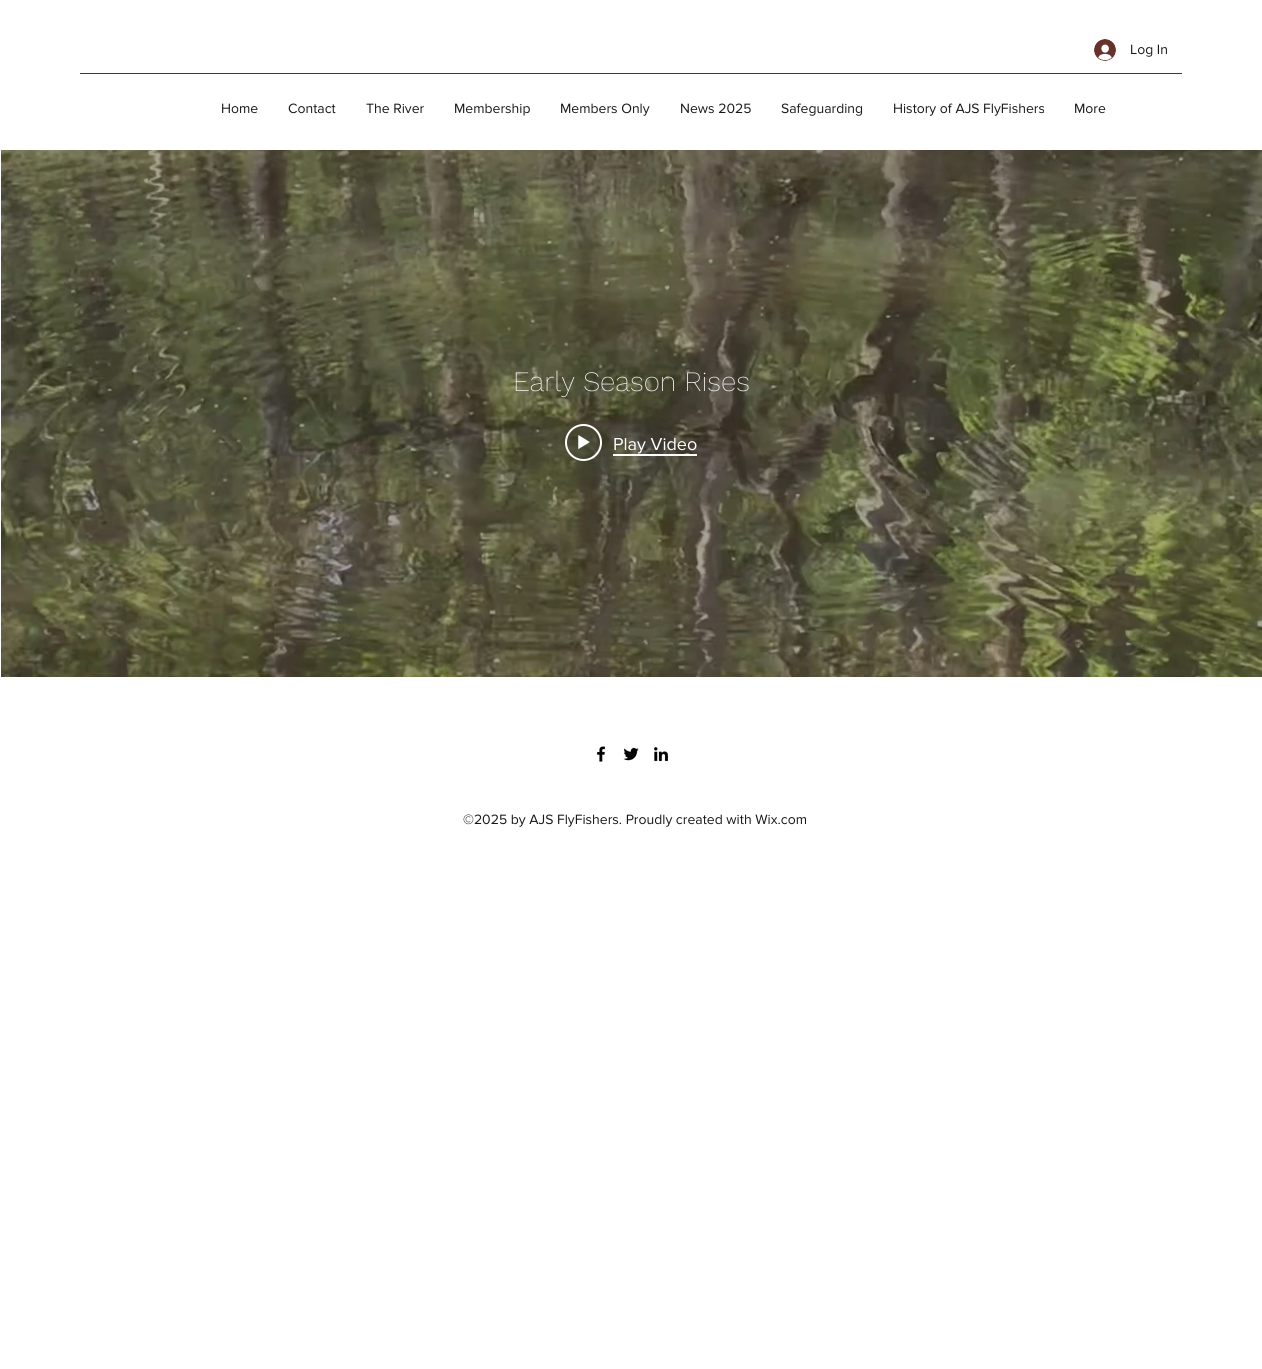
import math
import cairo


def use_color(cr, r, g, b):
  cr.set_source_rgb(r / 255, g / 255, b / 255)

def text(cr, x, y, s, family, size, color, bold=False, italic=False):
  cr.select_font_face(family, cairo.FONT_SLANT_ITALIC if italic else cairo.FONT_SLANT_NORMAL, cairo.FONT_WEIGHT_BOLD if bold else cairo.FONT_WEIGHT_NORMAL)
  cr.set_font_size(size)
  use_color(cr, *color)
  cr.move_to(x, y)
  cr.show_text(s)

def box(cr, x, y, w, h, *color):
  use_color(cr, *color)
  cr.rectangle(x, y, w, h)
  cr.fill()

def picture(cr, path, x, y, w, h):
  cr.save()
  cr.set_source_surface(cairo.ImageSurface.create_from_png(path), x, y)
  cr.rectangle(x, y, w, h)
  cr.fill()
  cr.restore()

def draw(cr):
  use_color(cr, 255, 255, 255)
  cr.paint()
  picture(cr, "img_01.png", 1094, 39, 22, 22)
  box(cr, 80, 73, 1102, 1, 59, 59, 59)
  picture(cr, "img_02.png", 1, 150, 1261, 527)
  picture(cr, "img_03.png", 52, 157, 1210, 520)
  cr.arc(583.5, 442.5, 17.5, 0, 2 * math.pi)
  use_color(cr, 255, 255, 255)
  cr.stroke()
  picture(cr, "img_04.png", 578, 435, 12, 14)
  box(cr, 613, 454, 84, 2, 255, 255, 255)
  picture(cr, "img_05.png", 597, 746, 9, 16)
  picture(cr, "img_06.png", 623, 747, 16, 14)
  picture(cr, "img_07.png", 654, 747, 15, 15)
  text(cr, 1130, 54, "Log In", "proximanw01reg", 14, (24, 24, 24))
  text(cr, 221, 113, "Home", "proximanw01reg", 14, (24, 24, 24))
  text(cr, 288, 113, "Contact", "proximanw01reg", 14, (24, 24, 24))
  text(cr, 366, 113, "The River", "proximanw01reg", 14, (24, 24, 24))
  text(cr, 454, 113, "Membership", "proximanw01reg", 14, (24, 24, 24))
  text(cr, 560, 113, "Members Only", "proximanw01reg", 14, (24, 24, 24))
  text(cr, 680, 113, "News 2025", "proximanw01reg", 14, (24, 24, 24))
  text(cr, 781, 113, "Safeguarding", "proximanw01reg", 14, (24, 24, 24))
  text(cr, 893, 113, "History of AJS FlyFishers", "proximanw01reg", 14, (24, 24, 24))
  text(cr, 1074, 113, "More", "proximanw01reg", 14, (24, 24, 24))
  text(cr, 513, 391, "Early Season Rises", "Work Sans ExtraLight", 28, (255, 255, 255))
  text(cr, 613, 450, "Play Video", "proximanw01reg", 18, (255, 255, 255))
  text(cr, 463, 824, "©2025 by AJS FlyFishers. Proudly created with Wix.com", "proximanw01reg", 14, (24, 24, 24))


surface = cairo.ImageSurface(cairo.FORMAT_RGB24, 1262, 1369)
cr = cairo.Context(surface)
options = cairo.FontOptions()
options.set_hint_metrics(cairo.HINT_METRICS_OFF)
options.set_hint_style(cairo.HINT_STYLE_NONE)
cr.set_font_options(options)
cr.set_miter_limit(4)
draw(cr)
surface.write_to_png("out.png")
